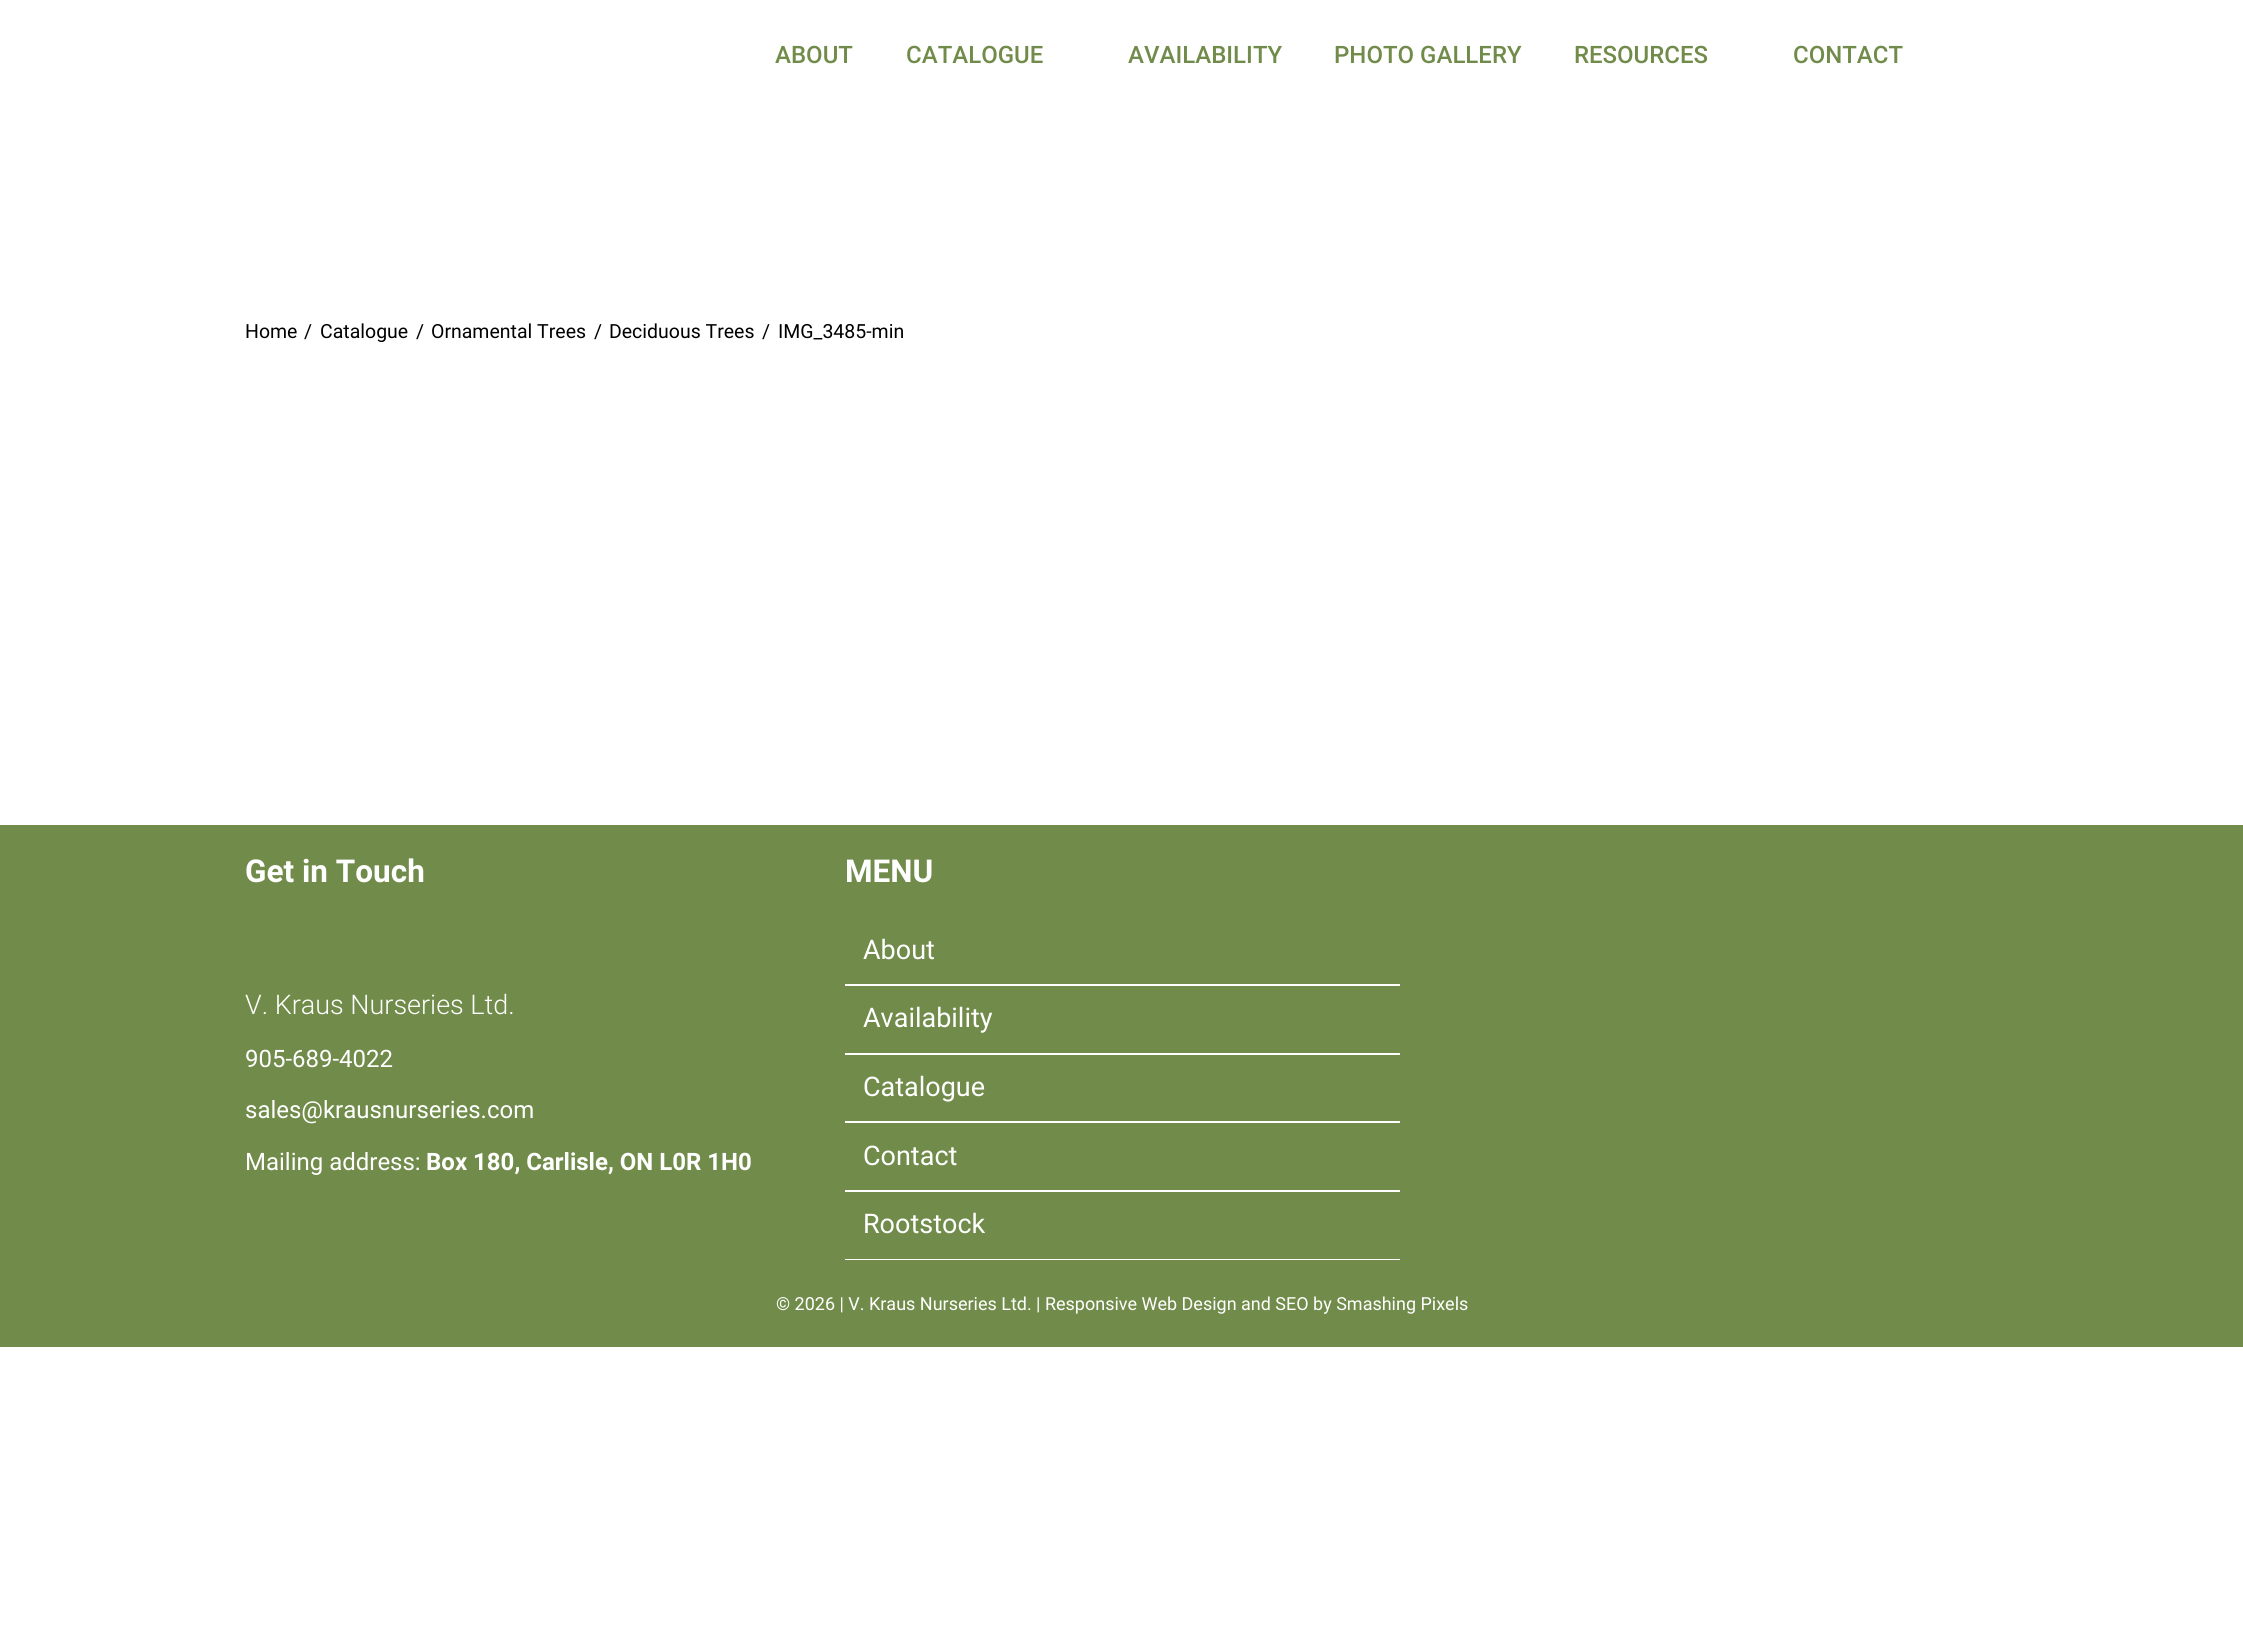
import math
import cairo


def use_color(cr, r, g, b):
  cr.set_source_rgb(r / 255, g / 255, b / 255)

def text(cr, x, y, s, family, size, color, bold=False, italic=False):
  cr.select_font_face(family, cairo.FONT_SLANT_ITALIC if italic else cairo.FONT_SLANT_NORMAL, cairo.FONT_WEIGHT_BOLD if bold else cairo.FONT_WEIGHT_NORMAL)
  cr.set_font_size(size)
  use_color(cr, *color)
  cr.move_to(x, y)
  cr.show_text(s)

def box(cr, x, y, w, h, *color):
  use_color(cr, *color)
  cr.rectangle(x, y, w, h)
  cr.fill()

def draw(cr):
  use_color(cr, 255, 255, 255)
  cr.paint()
  box(cr, 0, 825, 2243, 522, 113, 139, 74)
  box(cr, 845, 984, 555, 2, 255, 255, 255)
  box(cr, 845, 1053, 555, 2, 255, 255, 255)
  box(cr, 845, 1121, 555, 2, 255, 255, 255)
  box(cr, 845, 1190, 555, 2, 255, 255, 255)
  box(cr, 845, 1259, 555, 1, 255, 255, 255)
  text(cr, 775, 63, "ABOUT", "Roboto Medium", 24, (113, 139, 74))
  text(cr, 906, 63, "CATALOGUE", "Roboto Medium", 24, (113, 139, 74))
  text(cr, 1128, 63, "AVAILABILITY", "Roboto Medium", 24, (113, 139, 74))
  text(cr, 1334, 63, "PHOTO GALLERY", "Roboto Medium", 24, (113, 139, 74))
  text(cr, 1574, 63, "RESOURCES", "Roboto Medium", 24, (113, 139, 74))
  text(cr, 1793, 63, "CONTACT", "Roboto Medium", 24, (113, 139, 74))
  text(cr, 245, 338, "Home", "Roboto", 19.5, (0, 0, 0))
  text(cr, 304, 338, "/", "Roboto", 19.5, (0, 0, 0))
  text(cr, 320, 338, "Catalogue", "Roboto", 19.5, (0, 0, 0))
  text(cr, 416, 338, "/", "Roboto", 19.5, (0, 0, 0))
  text(cr, 431, 338, "Ornamental Trees", "Roboto", 19.5, (0, 0, 0))
  text(cr, 594, 338, "/", "Roboto", 19.5, (0, 0, 0))
  text(cr, 609, 338, "Deciduous Trees", "Roboto", 19.5, (0, 0, 0))
  text(cr, 762, 338, "/", "Roboto", 19.5, (0, 0, 0))
  text(cr, 778, 338, "IMG_3485-min", "Roboto", 19.5, (0, 0, 0))
  text(cr, 245, 882, "Get in Touch", "Roboto", 31.5, (255, 255, 255), bold=True)
  text(cr, 245, 1014, "V. Kraus Nurseries Ltd.", "Roboto Light", 27, (255, 255, 255))
  text(cr, 245, 1067, "905-689-4022", "Roboto", 24, (255, 255, 255))
  text(cr, 245, 1118, "sales@krausnurseries.com", "Roboto", 24, (255, 255, 255))
  text(cr, 245, 1170, "Mailing address:", "Roboto", 24, (255, 255, 255))
  text(cr, 426, 1170, "Box 180, Carlisle, ON L0R 1H0", "Roboto", 24, (255, 255, 255), bold=True)
  text(cr, 845, 882, "MENU", "Roboto", 31.5, (255, 255, 255), bold=True)
  text(cr, 863, 959, "About", "Roboto", 27, (255, 255, 255))
  text(cr, 863, 1027, "Availability", "Roboto", 27, (255, 255, 255))
  text(cr, 863, 1096, "Catalogue", "Roboto", 27, (255, 255, 255))
  text(cr, 863, 1165, "Contact", "Roboto", 27, (255, 255, 255))
  text(cr, 863, 1233, "Rootstock", "Roboto", 27, (255, 255, 255))
  text(cr, 776, 1310, "© 2026 | V. Kraus Nurseries Ltd. | Responsive Web Design and SEO by Smashing Pixels", "Roboto", 18, (255, 255, 255))


surface = cairo.ImageSurface(cairo.FORMAT_RGB24, 2243, 1637)
cr = cairo.Context(surface)
options = cairo.FontOptions()
options.set_hint_metrics(cairo.HINT_METRICS_OFF)
options.set_hint_style(cairo.HINT_STYLE_NONE)
cr.set_font_options(options)
cr.set_miter_limit(4)
draw(cr)
surface.write_to_png("out.png")
